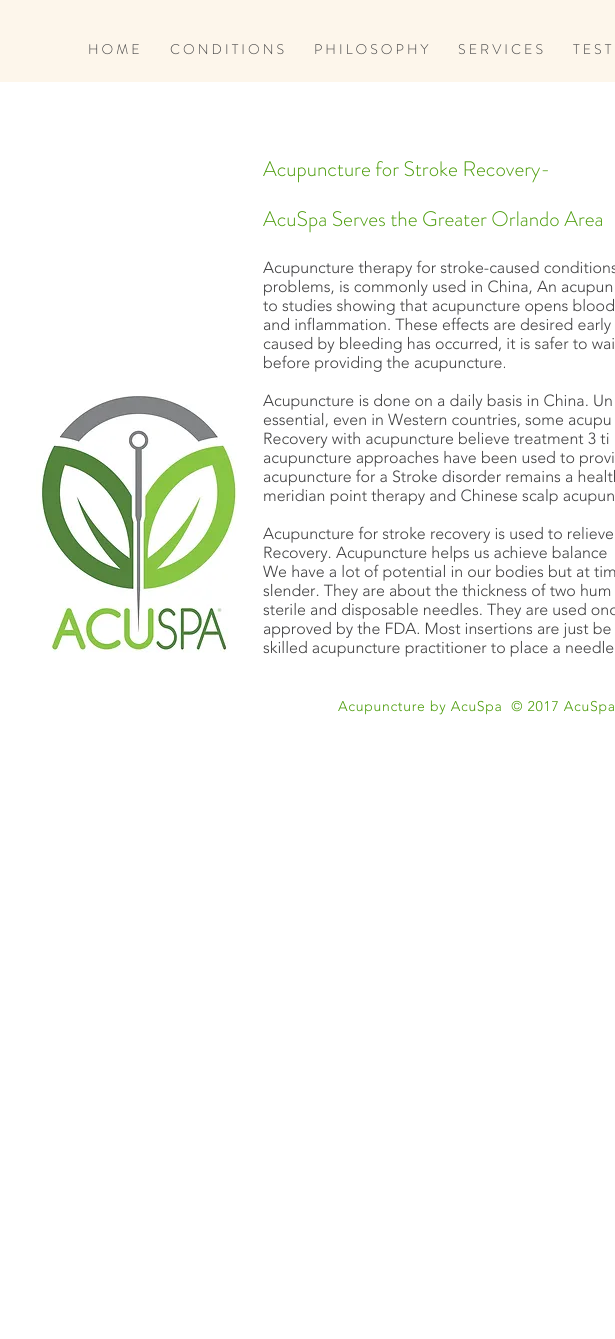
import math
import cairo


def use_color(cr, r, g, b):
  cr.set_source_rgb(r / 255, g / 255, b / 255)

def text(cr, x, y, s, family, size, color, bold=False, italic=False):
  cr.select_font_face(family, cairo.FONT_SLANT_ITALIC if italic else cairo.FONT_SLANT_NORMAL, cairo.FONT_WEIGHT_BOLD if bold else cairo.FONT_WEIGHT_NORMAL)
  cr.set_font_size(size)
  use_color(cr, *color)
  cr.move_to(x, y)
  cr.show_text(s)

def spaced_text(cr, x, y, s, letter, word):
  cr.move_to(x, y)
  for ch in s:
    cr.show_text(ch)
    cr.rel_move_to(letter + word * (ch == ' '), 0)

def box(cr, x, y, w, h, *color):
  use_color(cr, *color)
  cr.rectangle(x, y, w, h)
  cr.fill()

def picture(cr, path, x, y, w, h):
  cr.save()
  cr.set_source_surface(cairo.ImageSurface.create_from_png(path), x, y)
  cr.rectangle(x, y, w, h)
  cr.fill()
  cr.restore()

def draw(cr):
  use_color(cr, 255, 255, 255)
  cr.paint()
  box(cr, 0, 0, 615, 82, 253, 246, 235)
  picture(cr, "img_01.png", 36, 396, 201, 257)
  text(cr, 88, 54, "H O M E", "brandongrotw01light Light", 14, (64, 64, 65))
  text(cr, 170, 54, "C O N D I T I O N S", "brandongrotw01light Light", 14, (64, 64, 65))
  text(cr, 314, 54, "P H I L O S O P H Y", "brandongrotw01light Light", 14, (64, 64, 65))
  text(cr, 458, 54, "S E R V I C E S", "brandongrotw01light Light", 14, (64, 64, 65))
  text(cr, 573, 54, "T E S T", "brandongrotw01light Light", 14, (64, 64, 65))
  text(cr, 263, 176, "Acupuncture for Stroke Recovery-", "brandongrotw01light Light", 21, (76, 156, 11))
  text(cr, 263, 226, "AcuSpa Serves the Greater Orlando Area", "brandongrotw01light Light", 21, (76, 156, 11))
  text(cr, 263, 273, "Acupuncture therapy for stroke-caused conditions", "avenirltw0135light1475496 Light", 16, (64, 64, 65))
  text(cr, 263, 292, "problems, is commonly used in China, An acupun", "avenirltw0135light1475496 Light", 16, (64, 64, 65))
  text(cr, 263, 311, "to studies showing that acupuncture opens blood", "avenirltw0135light1475496 Light", 16, (64, 64, 65))
  text(cr, 263, 330, "and inflammation. These effects are desired early", "avenirltw0135light1475496 Light", 16, (64, 64, 65))
  text(cr, 263, 349, "caused by bleeding has occurred, it is safer to wai", "avenirltw0135light1475496 Light", 16, (64, 64, 65))
  text(cr, 263, 368, "before providing the acupuncture.", "avenirltw0135light1475496 Light", 16, (64, 64, 65))
  text(cr, 263, 406, "Acupuncture is done on a daily basis in China. Un", "avenirltw0135light1475496 Light", 16, (64, 64, 65))
  text(cr, 263, 425, "essential, even in Western countries, some acupu", "avenirltw0135light1475496 Light", 16, (64, 64, 65))
  text(cr, 263, 444, "Recovery with acupuncture believe treatment 3 ti", "avenirltw0135light1475496 Light", 16, (64, 64, 65))
  text(cr, 263, 463, "acupuncture approaches have been used to provi", "avenirltw0135light1475496 Light", 16, (64, 64, 65))
  text(cr, 263, 482, "acupuncture for a Stroke disorder remains a health", "avenirltw0135light1475496 Light", 16, (64, 64, 65))
  text(cr, 263, 501, "meridian point therapy and Chinese scalp acupun", "avenirltw0135light1475496 Light", 16, (64, 64, 65))
  text(cr, 263, 539, "Acupuncture for stroke recovery is used to relieve", "avenirltw0135light1475496 Light", 16, (64, 64, 65))
  text(cr, 263, 558, "Recovery. Acupuncture helps us achieve balance", "avenirltw0135light1475496 Light", 16, (64, 64, 65))
  text(cr, 263, 577, "We have a lot of potential in our bodies but at tim", "avenirltw0135light1475496 Light", 16, (64, 64, 65))
  text(cr, 263, 596, "slender. They are about the thickness of two hum", "avenirltw0135light1475496 Light", 16, (64, 64, 65))
  text(cr, 263, 615, "sterile and disposable needles. They are used onc", "avenirltw0135light1475496 Light", 16, (64, 64, 65))
  text(cr, 263, 634, "approved by the FDA. Most insertions are just be", "avenirltw0135light1475496 Light", 16, (64, 64, 65))
  text(cr, 263, 653, "skilled acupuncture practitioner to place a needle", "avenirltw0135light1475496 Light", 16, (64, 64, 65))
  cr.set_font_size(14)
  use_color(cr, 76, 156, 11)
  spaced_text(cr, 338, 711, "Acupuncture by AcuSpa  © 2017 AcuSpa", 0.7, 0)


surface = cairo.ImageSurface(cairo.FORMAT_RGB24, 615, 1339)
cr = cairo.Context(surface)
options = cairo.FontOptions()
options.set_hint_metrics(cairo.HINT_METRICS_OFF)
options.set_hint_style(cairo.HINT_STYLE_NONE)
cr.set_font_options(options)
cr.set_miter_limit(4)
draw(cr)
surface.write_to_png("out.png")
